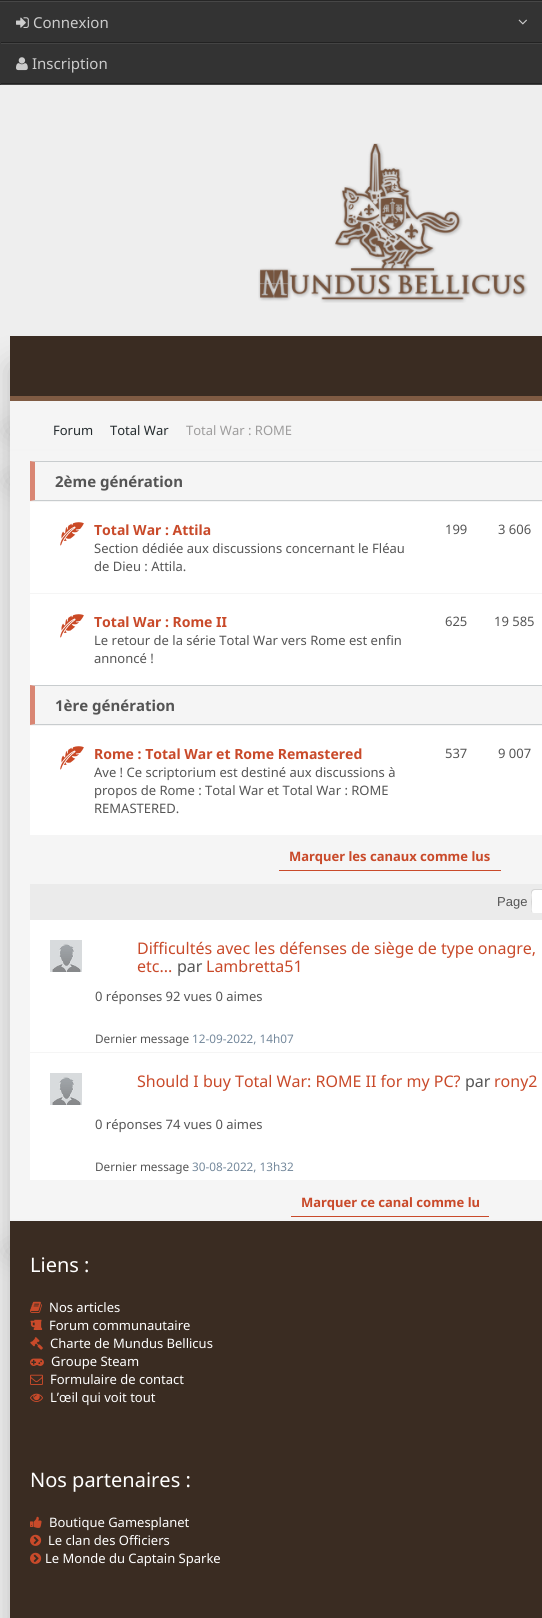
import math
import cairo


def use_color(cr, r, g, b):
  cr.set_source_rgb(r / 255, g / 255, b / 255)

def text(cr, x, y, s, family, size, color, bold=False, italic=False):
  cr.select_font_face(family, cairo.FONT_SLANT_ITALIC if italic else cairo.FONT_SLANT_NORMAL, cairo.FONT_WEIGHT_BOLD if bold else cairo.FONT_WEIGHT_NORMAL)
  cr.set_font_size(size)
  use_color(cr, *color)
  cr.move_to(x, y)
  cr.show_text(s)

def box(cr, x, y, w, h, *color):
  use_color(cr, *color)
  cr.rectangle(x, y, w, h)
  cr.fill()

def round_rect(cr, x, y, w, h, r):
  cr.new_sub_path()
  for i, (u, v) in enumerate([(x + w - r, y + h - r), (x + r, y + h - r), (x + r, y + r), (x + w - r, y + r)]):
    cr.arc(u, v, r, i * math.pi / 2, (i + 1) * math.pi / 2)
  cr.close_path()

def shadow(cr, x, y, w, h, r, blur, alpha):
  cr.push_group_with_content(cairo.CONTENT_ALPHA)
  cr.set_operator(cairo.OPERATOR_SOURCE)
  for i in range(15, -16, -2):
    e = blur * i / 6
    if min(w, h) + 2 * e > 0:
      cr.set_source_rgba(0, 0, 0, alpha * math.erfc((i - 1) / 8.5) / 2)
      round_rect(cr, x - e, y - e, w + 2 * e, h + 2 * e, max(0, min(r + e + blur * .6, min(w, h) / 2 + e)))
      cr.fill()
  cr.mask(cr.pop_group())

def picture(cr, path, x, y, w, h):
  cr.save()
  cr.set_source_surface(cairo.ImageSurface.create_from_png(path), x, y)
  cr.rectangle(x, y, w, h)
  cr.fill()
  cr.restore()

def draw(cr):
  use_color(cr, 238, 238, 238)
  cr.paint()
  box(cr, 0, 2, 542, 83, 51, 51, 51)
  box(cr, 0, 1, 542, 1, 71, 71, 71)
  box(cr, 0, 0, 542, 1, 38, 38, 38)
  box(cr, 1, 43, 541, 1, 68, 68, 68)
  box(cr, 1, 42, 541, 1, 34, 34, 34)
  picture(cr, "img_01.png", 16, 17, 13, 11)
  picture(cr, "img_02.png", 518, 19, 9, 6)
  box(cr, 1, 84, 541, 1, 68, 68, 68)
  box(cr, 1, 83, 541, 1, 34, 34, 34)
  picture(cr, "img_03.png", 16, 57, 12, 14)
  picture(cr, "img_04.png", 258, 143, 270, 160)
  use_color(cr, 0, 0, 0)
  shadow(cr, 10, 366, 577, 65, 0, 15, 0.2)
  box(cr, 10, 336, 532, 60, 58, 44, 34)
  box(cr, 10, 396, 532, 5, 127, 91, 67)
  use_color(cr, 0, 0, 0)
  shadow(cr, 10, 431, 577, 50, 0, 15, 0.2)
  box(cr, 10, 401, 532, 50, 245, 245, 245)
  use_color(cr, 0, 0, 0)
  shadow(cr, 10, 481, 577, 770, 0, 15, 0.2)
  box(cr, 10, 451, 532, 770, 245, 245, 245)
  use_color(cr, 200, 204, 206)
  cr.new_path()
  cr.move_to(30, 461)
  cr.line_to(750, 461)
  cr.line_to(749, 462)
  cr.line_to(35, 462)
  cr.close_path()
  cr.fill()
  cr.new_path()
  cr.move_to(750, 501)
  cr.line_to(30, 501)
  cr.line_to(35, 500)
  cr.line_to(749, 500)
  cr.close_path()
  cr.fill()
  cr.set_source_rgba(0.816, 0.38, 0.275, 0.74)
  cr.new_path()
  cr.move_to(30, 501)
  cr.line_to(30, 461)
  cr.line_to(35, 462)
  cr.line_to(35, 500)
  cr.close_path()
  cr.fill()
  box(cr, 30, 502, 512, 91, 255, 255, 255)
  picture(cr, "img_05.png", 60, 522, 24, 24)
  box(cr, 30, 594, 512, 91, 255, 255, 255)
  picture(cr, "img_05.png", 60, 614, 24, 24)
  use_color(cr, 200, 204, 206)
  cr.new_path()
  cr.move_to(30, 685)
  cr.line_to(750, 685)
  cr.line_to(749, 686)
  cr.line_to(35, 686)
  cr.close_path()
  cr.fill()
  cr.new_path()
  cr.move_to(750, 725)
  cr.line_to(30, 725)
  cr.line_to(35, 724)
  cr.line_to(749, 724)
  cr.close_path()
  cr.fill()
  cr.set_source_rgba(0.816, 0.38, 0.275, 0.74)
  cr.new_path()
  cr.move_to(30, 725)
  cr.line_to(30, 685)
  cr.line_to(35, 686)
  cr.line_to(35, 724)
  cr.close_path()
  cr.fill()
  box(cr, 30, 726, 512, 109, 255, 255, 255)
  picture(cr, "img_05.png", 60, 746, 24, 24)
  box(cr, 279, 870, 222, 1, 201, 74, 42)
  box(cr, 30, 884, 512, 36, 235, 235, 235)
  use_color(cr, 255, 255, 255)
  round_rect(cr, 531, 889, 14, 24, 3)
  cr.fill()
  cr.set_source_rgba(0.588, 0.588, 0.588, 0.4)
  cr.new_path()
  cr.move_to(535, 890)
  cr.line_to(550, 890)
  cr.curve_to(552, 890, 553.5, 890, 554.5, 890.5)
  cr.curve_to(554.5, 889.5, 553, 889, 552, 889)
  cr.line_to(534, 889)
  cr.curve_to(532.5, 889, 531, 890.5, 531, 892)
  cr.line_to(531, 910)
  cr.curve_to(531, 911, 531.5, 912, 532.5, 912.5)
  cr.line_to(531.5, 910)
  cr.line_to(532, 902)
  cr.line_to(531.5, 895)
  cr.line_to(532, 892)
  cr.curve_to(532.5, 891, 533.5, 890, 535, 890)
  cr.close_path()
  cr.fill()
  box(cr, 30, 920, 512, 260, 255, 255, 255)
  picture(cr, "img_06.png", 50, 940, 32, 32)
  box(cr, 30, 1052, 512, 1, 245, 245, 245)
  picture(cr, "img_06.png", 50, 1073, 32, 32)
  use_color(cr, 0, 0, 0)
  shadow(cr, 10, 1251, 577, 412, 0, 15, 0.2)
  box(cr, 291, 1216, 198, 1, 201, 74, 42)
  box(cr, 10, 1221, 532, 397, 58, 44, 34)
  picture(cr, "img_07.png", 30, 1301, 12, 12)
  picture(cr, "img_08.png", 30, 1319, 13, 11)
  picture(cr, "img_09.png", 30, 1337, 13, 13)
  picture(cr, "img_10.png", 30, 1358, 14, 8)
  picture(cr, "img_11.png", 30, 1374, 13, 11)
  picture(cr, "img_12.png", 30, 1393, 13, 9)
  picture(cr, "img_13.png", 30, 1516, 12, 12)
  picture(cr, "img_14.png", 30, 1534, 12, 12)
  picture(cr, "img_14.png", 30, 1552, 12, 12)
  text(cr, 33, 28, "Connexion", "Noto Sans", 15, (204, 204, 204))
  text(cr, 32, 69, "Inscription", "Noto Sans", 15, (204, 204, 204))
  text(cr, 53, 435, "Forum", "Noto Sans", 13, (37, 44, 47))
  text(cr, 110, 435, "Total War", "Noto Sans", 13, (37, 44, 47))
  text(cr, 186, 435, "Total War : ROME", "Noto Sans", 13, (158, 157, 157))
  text(cr, 55, 487, "2ème génération", "Noto Sans", 15, (85, 85, 85), bold=True)
  text(cr, 94, 535, "Total War : Attila", "Noto Sans", 14, (201, 74, 42), bold=True)
  text(cr, 94, 553, "Section dédiée aux discussions concernant le Fléau", "Noto Sans", 13, (85, 85, 85))
  text(cr, 94, 571, "de Dieu : Attila.", "Noto Sans", 13, (85, 85, 85))
  text(cr, 445, 534, "199", "Noto Sans", 13, (85, 85, 85))
  text(cr, 498, 534, "3 606", "Noto Sans", 13, (85, 85, 85))
  text(cr, 94, 627, "Total War : Rome II", "Noto Sans", 14, (201, 74, 42), bold=True)
  text(cr, 94, 645, "Le retour de la série Total War vers Rome est enfin", "Noto Sans", 13, (85, 85, 85))
  text(cr, 94, 663, "annoncé !", "Noto Sans", 13, (85, 85, 85))
  text(cr, 445, 626, "625", "Noto Sans", 13, (85, 85, 85))
  text(cr, 494, 626, "19 585", "Noto Sans", 13, (85, 85, 85))
  text(cr, 55, 711, "1ère génération", "Noto Sans", 15, (85, 85, 85), bold=True)
  text(cr, 94, 759, "Rome : Total War et Rome Remastered", "Noto Sans", 14, (201, 74, 42), bold=True)
  text(cr, 94, 777, "Ave ! Ce scriptorium est destiné aux discussions à", "Noto Sans", 13, (85, 85, 85))
  text(cr, 94, 795, "propos de Rome : Total War et Total War : ROME", "Noto Sans", 13, (85, 85, 85))
  text(cr, 94, 813, "REMASTERED.", "Noto Sans", 13, (85, 85, 85))
  text(cr, 445, 758, "537", "Noto Sans", 13, (85, 85, 85))
  text(cr, 498, 758, "9 007", "Noto Sans", 13, (85, 85, 85))
  text(cr, 289, 861, "Marquer les canaux comme lus", "Noto Sans", 13, (201, 74, 42), bold=True)
  text(cr, 497, 906, "Page", "Liberation Sans", 13, (85, 85, 85))
  text(cr, 137, 954, "Difficultés avec les défenses de siège de type onagre,", "Noto Sans", 16, (201, 74, 42))
  text(cr, 137, 972, "etc...", "Noto Sans", 16, (201, 74, 42))
  text(cr, 177, 972, "par", "Noto Sans", 16, (85, 85, 85))
  text(cr, 206, 972, "Lambretta51", "Noto Sans", 16, (201, 74, 42))
  text(cr, 95, 1001, "0 réponses 92 vues 0 aimes", "Noto Sans", 13, (85, 85, 85))
  text(cr, 95, 1043, "Dernier message", "Noto Sans", 11.75, (85, 85, 85))
  text(cr, 192, 1043, "12-09-2022, 14h07", "Noto Sans", 11.75, (117, 137, 156))
  text(cr, 137, 1087, "Should I buy Total War: ROME II for my PC?", "Noto Sans", 16, (201, 74, 42))
  text(cr, 465, 1087, "par", "Noto Sans", 16, (85, 85, 85))
  text(cr, 494, 1087, "rony2", "Noto Sans", 16, (201, 74, 42))
  text(cr, 95, 1129, "0 réponses 74 vues 0 aimes", "Noto Sans", 13, (85, 85, 85))
  text(cr, 95, 1171, "Dernier message", "Noto Sans", 11.75, (85, 85, 85))
  text(cr, 192, 1171, "30-08-2022, 13h32", "Noto Sans", 11.75, (117, 137, 156))
  text(cr, 301, 1207, "Marquer ce canal comme lu", "Noto Sans", 13, (201, 74, 42), bold=True)
  text(cr, 30, 1272, "Liens :", "Noto Sans", 20, (255, 255, 255))
  text(cr, 49, 1312, "Nos articles", "Noto Sans", 13, (255, 255, 255))
  text(cr, 49, 1330, "Forum communautaire", "Noto Sans", 13, (255, 255, 255))
  text(cr, 50, 1348, "Charte de Mundus Bellicus", "Noto Sans", 13, (255, 255, 255))
  text(cr, 51, 1366, "Groupe Steam", "Noto Sans", 13, (255, 255, 255))
  text(cr, 50, 1384, "Formulaire de contact", "Noto Sans", 13, (255, 255, 255))
  text(cr, 50, 1402, "L’œil qui voit tout", "Noto Sans", 13, (255, 255, 255))
  text(cr, 30, 1487, "Nos partenaires :", "Noto Sans", 20, (255, 255, 255))
  text(cr, 49, 1527, "Boutique Gamesplanet", "Noto Sans", 13, (255, 255, 255))
  text(cr, 48, 1545, "Le clan des Officiers", "Noto Sans", 13, (255, 255, 255))
  text(cr, 45, 1563, "Le Monde du Captain Sparke", "Noto Sans", 13, (255, 255, 255))


surface = cairo.ImageSurface(cairo.FORMAT_RGB24, 542, 1618)
cr = cairo.Context(surface)
options = cairo.FontOptions()
options.set_hint_metrics(cairo.HINT_METRICS_OFF)
options.set_hint_style(cairo.HINT_STYLE_NONE)
cr.set_font_options(options)
cr.set_miter_limit(4)
draw(cr)
surface.write_to_png("out.png")
